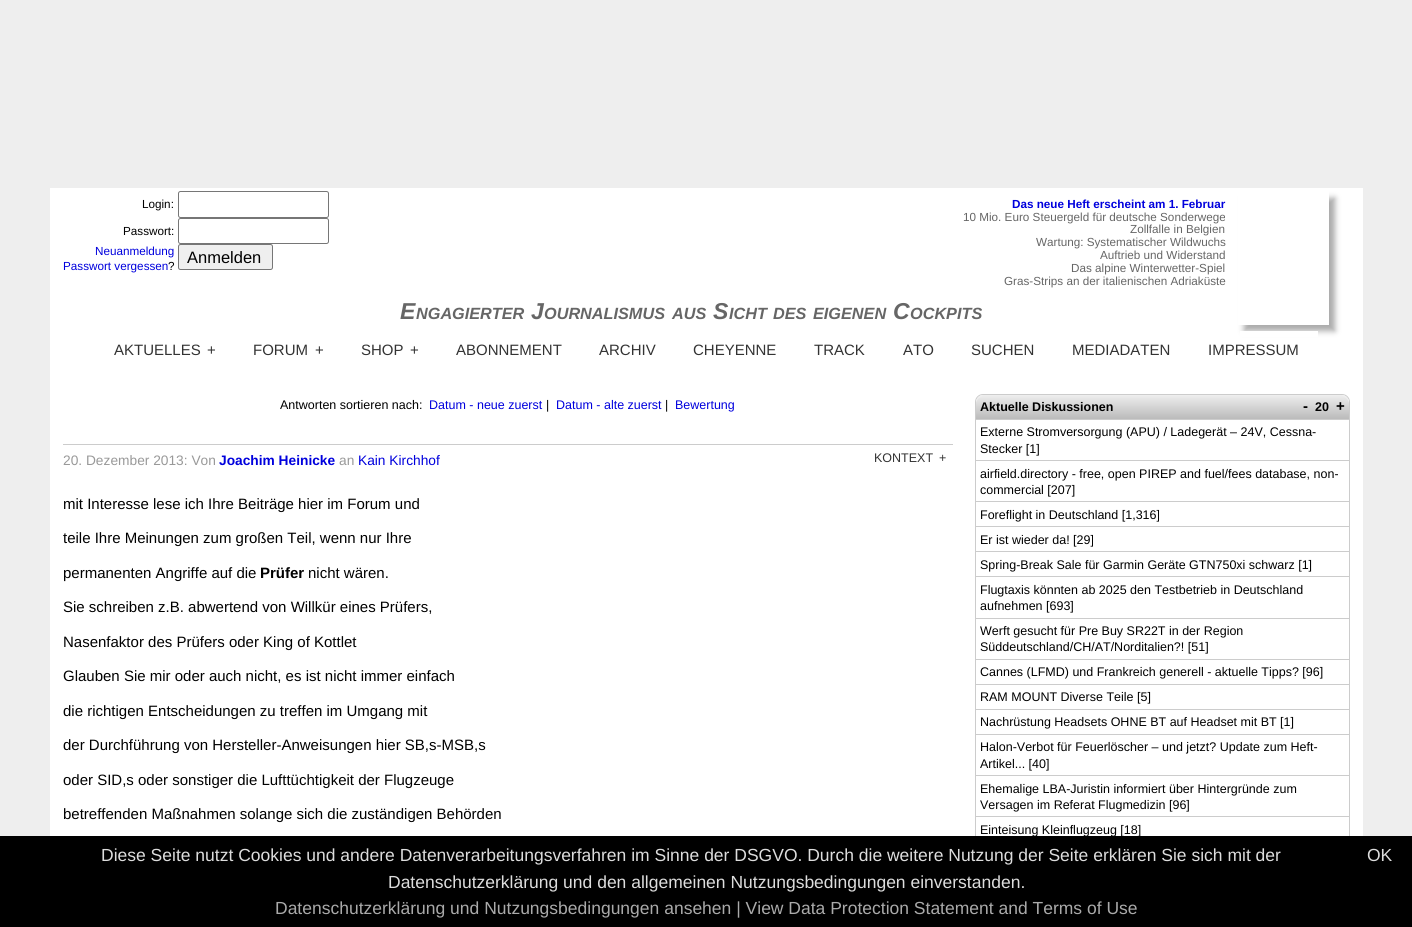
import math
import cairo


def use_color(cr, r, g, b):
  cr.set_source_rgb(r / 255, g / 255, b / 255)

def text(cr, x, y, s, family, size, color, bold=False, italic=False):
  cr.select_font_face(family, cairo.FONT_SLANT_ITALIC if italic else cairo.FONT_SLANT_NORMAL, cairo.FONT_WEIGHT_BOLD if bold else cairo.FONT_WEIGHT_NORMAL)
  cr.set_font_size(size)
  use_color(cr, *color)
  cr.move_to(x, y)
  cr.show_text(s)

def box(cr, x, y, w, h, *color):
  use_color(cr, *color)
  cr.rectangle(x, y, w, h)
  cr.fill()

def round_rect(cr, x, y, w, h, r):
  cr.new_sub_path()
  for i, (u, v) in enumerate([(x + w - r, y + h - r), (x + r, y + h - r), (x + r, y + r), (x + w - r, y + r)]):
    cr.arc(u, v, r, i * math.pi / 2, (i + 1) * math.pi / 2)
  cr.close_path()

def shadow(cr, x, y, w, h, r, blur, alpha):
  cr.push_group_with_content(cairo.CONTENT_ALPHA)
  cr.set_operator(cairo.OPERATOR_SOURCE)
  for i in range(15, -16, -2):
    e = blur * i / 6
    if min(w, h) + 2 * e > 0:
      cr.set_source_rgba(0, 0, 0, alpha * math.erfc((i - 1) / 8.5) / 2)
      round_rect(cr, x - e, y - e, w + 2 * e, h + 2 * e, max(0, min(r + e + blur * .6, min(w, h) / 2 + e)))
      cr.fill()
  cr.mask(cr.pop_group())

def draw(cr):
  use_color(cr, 238, 238, 238)
  cr.paint()
  box(cr, 50, 188, 1313, 648, 255, 255, 255)
  round_rect(cr, 178.5, 191.5, 150, 26, 2)
  use_color(cr, 118, 118, 118)
  cr.set_line_width(1)
  cr.stroke()
  round_rect(cr, 178.5, 218.5, 150, 25, 2)
  cr.stroke()
  use_color(cr, 239, 239, 239)
  round_rect(cr, 178.5, 244.5, 94, 25, 2)
  cr.fill_preserve()
  use_color(cr, 118, 118, 118)
  cr.stroke()
  cr.save()
  cr.set_fill_rule(cairo.FILL_RULE_EVEN_ODD)
  cr.new_path()
  cr.move_to(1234, 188)
  cr.line_to(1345, 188)
  cr.line_to(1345, 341)
  cr.line_to(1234, 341)
  cr.close_path()
  cr.move_to(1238, 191)
  cr.line_to(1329, 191)
  cr.line_to(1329, 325)
  cr.line_to(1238, 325)
  cr.close_path()
  cr.clip()
  use_color(cr, 170, 170, 170)
  shadow(cr, 1244, 198, 91, 133, 0, 3, 1)
  cr.restore()
  box(cr, 1240, 331, 78, 6, 255, 255, 255)
  box(cr, 63, 444, 890, 1, 204, 204, 204)
  round_rect(cr, 975.5, 394.5, 374, 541, 7.5)
  cr.stroke()
  gradient = cairo.LinearGradient(1163, 395, 1163, 419)
  gradient.add_color_stop_rgba(0, 0.933, 0.933, 0.933, 1)
  gradient.add_color_stop_rgba(1, 0.733, 0.733, 0.733, 1)
  cr.set_source(gradient)
  cr.new_path()
  cr.move_to(984, 395)
  cr.line_to(1341, 395)
  cr.curve_to(1345.5, 395, 1349, 398.5, 1349, 403)
  cr.line_to(1349, 419)
  cr.line_to(976, 419)
  cr.line_to(976, 403)
  cr.curve_to(976, 398.5, 979.5, 395, 984, 395)
  cr.close_path()
  cr.fill()
  use_color(cr, 238, 238, 238)
  cr.new_path()
  cr.move_to(984, 396)
  cr.line_to(1341, 396)
  cr.curve_to(1345, 396, 1349, 400, 1349, 404)
  cr.curve_to(1349, 399, 1346, 395, 1341, 395)
  cr.line_to(984, 395)
  cr.curve_to(979, 395, 976, 399, 976, 404)
  cr.curve_to(976, 400, 980, 396, 984, 396)
  cr.close_path()
  cr.fill()
  box(cr, 976, 419, 373, 1, 204, 204, 204)
  box(cr, 976, 460, 373, 1, 204, 204, 204)
  box(cr, 976, 501, 373, 1, 204, 204, 204)
  box(cr, 976, 526, 373, 1, 204, 204, 204)
  box(cr, 976, 551, 373, 1, 204, 204, 204)
  box(cr, 976, 576, 373, 1, 204, 204, 204)
  box(cr, 976, 618, 373, 1, 204, 204, 204)
  box(cr, 976, 659, 373, 1, 204, 204, 204)
  box(cr, 976, 684, 373, 1, 204, 204, 204)
  box(cr, 976, 709, 373, 1, 204, 204, 204)
  box(cr, 976, 734, 373, 1, 204, 204, 204)
  box(cr, 976, 775, 373, 1, 204, 204, 204)
  box(cr, 976, 816, 373, 1, 204, 204, 204)
  box(cr, 0, 836, 1412, 91, 0, 0, 0)
  text(cr, 142, 208, "Login:", "Liberation Sans", 11.7, (0, 0, 0))
  text(cr, 123, 235, "Passwort:", "Liberation Sans", 11.7, (0, 0, 0))
  text(cr, 95, 255, "Neuanmeldung", "Liberation Sans", 11.7, (0, 0, 221))
  text(cr, 63, 270, "Passwort vergessen", "Liberation Sans", 11.7, (0, 0, 221))
  text(cr, 168, 270, "?", "Liberation Sans", 11.7, (0, 0, 0))
  text(cr, 187, 263, "Anmelden", "Liberation Sans", 16.5, (0, 0, 0))
  text(cr, 1012, 208, "Das neue Heft erscheint am 1. Februar", "Liberation Sans", 11.7, (0, 0, 221), bold=True)
  text(cr, 963, 221, "10 Mio. Euro Steuergeld für deutsche Sonderwege", "Liberation Sans", 11.7, (102, 102, 102))
  text(cr, 1130, 233, "Zollfalle in Belgien", "Liberation Sans", 11.7, (102, 102, 102))
  text(cr, 1036, 246, "Wartung: Systematischer Wildwuchs", "Liberation Sans", 11.7, (102, 102, 102))
  text(cr, 1100, 259, "Auftrieb und Widerstand", "Liberation Sans", 11.7, (102, 102, 102))
  text(cr, 1071, 272, "Das alpine Winterwetter-Spiel", "Liberation Sans", 11.7, (102, 102, 102))
  text(cr, 1004, 285, "Gras-Strips an der italienischen Adriaküste", "Liberation Sans", 11.7, (102, 102, 102))
  text(cr, 400, 319, "E", "Liberation Sans", 23, (102, 102, 102), bold=True, italic=True)
  text(cr, 416, 319, "NGAGIERTER", "Liberation Sans", 16.25, (102, 102, 102), bold=True, italic=True)
  text(cr, 531, 319, "J", "Liberation Sans", 23, (102, 102, 102), bold=True, italic=True)
  text(cr, 544, 319, "OURNALISMUS", "Liberation Sans", 16.25, (102, 102, 102), bold=True, italic=True)
  text(cr, 672, 319, "AUS", "Liberation Sans", 16.25, (102, 102, 102), bold=True, italic=True)
  text(cr, 713, 319, "S", "Liberation Sans", 23, (102, 102, 102), bold=True, italic=True)
  text(cr, 729, 319, "ICHT", "Liberation Sans", 16.25, (102, 102, 102), bold=True, italic=True)
  text(cr, 773, 319, "DES", "Liberation Sans", 16.25, (102, 102, 102), bold=True, italic=True)
  text(cr, 813, 319, "EIGENEN", "Liberation Sans", 16.25, (102, 102, 102), bold=True, italic=True)
  text(cr, 893, 319, "C", "Liberation Sans", 23, (102, 102, 102), bold=True, italic=True)
  text(cr, 910, 319, "OCKPITS", "Liberation Sans", 16.25, (102, 102, 102), bold=True, italic=True)
  text(cr, 114, 355, "AKTUELLES", "Liberation Sans", 15, (51, 51, 51))
  text(cr, 207, 355, "+", "Liberation Sans", 15, (51, 51, 51))
  text(cr, 253, 355, "FORUM", "Liberation Sans", 15, (51, 51, 51))
  text(cr, 315, 355, "+", "Liberation Sans", 15, (51, 51, 51))
  text(cr, 361, 355, "SHOP", "Liberation Sans", 15, (51, 51, 51))
  text(cr, 410, 355, "+", "Liberation Sans", 15, (51, 51, 51))
  text(cr, 456, 355, "ABONNEMENT", "Liberation Sans", 15, (51, 51, 51))
  text(cr, 599, 355, "ARCHIV", "Liberation Sans", 15, (51, 51, 51))
  text(cr, 693, 355, "CHEYENNE", "Liberation Sans", 15, (51, 51, 51))
  text(cr, 814, 355, "TRACK", "Liberation Sans", 15, (51, 51, 51))
  text(cr, 903, 355, "ATO", "Liberation Sans", 15, (51, 51, 51))
  text(cr, 971, 355, "SUCHEN", "Liberation Sans", 15, (51, 51, 51))
  text(cr, 1072, 355, "MEDIADATEN", "Liberation Sans", 15, (51, 51, 51))
  text(cr, 1208, 355, "IMPRESSUM", "Liberation Sans", 15, (51, 51, 51))
  text(cr, 280, 409, "Antworten sortieren nach:", "Liberation Sans", 12.5, (0, 0, 0))
  text(cr, 429, 409, "Datum - neue zuerst", "Liberation Sans", 12.5, (0, 0, 221))
  text(cr, 546, 409, "|", "Liberation Sans", 12.5, (0, 0, 0))
  text(cr, 556, 409, "Datum - alte zuerst", "Liberation Sans", 12.5, (0, 0, 221))
  text(cr, 665, 409, "|", "Liberation Sans", 12.5, (0, 0, 0))
  text(cr, 675, 409, "Bewertung", "Liberation Sans", 12.5, (0, 0, 221))
  text(cr, 63, 465, "20. Dezember 2013: Von", "Liberation Sans", 13.75, (153, 153, 153))
  text(cr, 219, 465, "Joachim Heinicke", "Liberation Sans", 13.75, (0, 0, 221), bold=True)
  text(cr, 339, 465, "an", "Liberation Sans", 13.75, (153, 153, 153))
  text(cr, 358, 465, "Kain Kirchhof", "Liberation Sans", 13.75, (0, 0, 221))
  text(cr, 874, 462, "KONTEXT", "Liberation Sans", 12.5, (51, 51, 51))
  text(cr, 939, 462, "+", "Liberation Sans", 12.5, (51, 51, 51))
  text(cr, 63, 509, "mit Interesse lese ich Ihre Beiträge hier im Forum und", "Liberation Sans", 15, (0, 0, 0))
  text(cr, 63, 543, "teile Ihre Meinungen zum großen Teil, wenn nur Ihre", "Liberation Sans", 15, (0, 0, 0))
  text(cr, 63, 578, "permanenten Angriffe auf die", "Liberation Sans", 15, (0, 0, 0))
  text(cr, 260, 578, "Prüfer", "Liberation Sans", 15, (0, 0, 0), bold=True)
  text(cr, 308, 578, "nicht wären.", "Liberation Sans", 15, (0, 0, 0))
  text(cr, 63, 612, "Sie schreiben z.B. abwertend von Willkür eines Prüfers,", "Liberation Sans", 15, (0, 0, 0))
  text(cr, 63, 647, "Nasenfaktor des Prüfers oder King of Kottlet", "Liberation Sans", 15, (0, 0, 0))
  text(cr, 63, 681, "Glauben Sie mir oder auch nicht, es ist nicht immer einfach", "Liberation Sans", 15, (0, 0, 0))
  text(cr, 63, 716, "die richtigen Entscheidungen zu treffen im Umgang mit", "Liberation Sans", 15, (0, 0, 0))
  text(cr, 63, 750, "der Durchführung von Hersteller-Anweisungen hier SB,s-MSB,s", "Liberation Sans", 15, (0, 0, 0))
  text(cr, 63, 785, "oder SID,s oder sonstiger die Lufttüchtigkeit der Flugzeuge", "Liberation Sans", 15, (0, 0, 0))
  text(cr, 63, 819, "betreffenden Maßnahmen solange sich die zuständigen Behörden", "Liberation Sans", 15, (0, 0, 0))
  text(cr, 980, 411, "Aktuelle Diskussionen", "Liberation Sans", 12.5, (0, 0, 0), bold=True)
  text(cr, 1303, 411, "-", "Liberation Sans", 15, (0, 0, 0), bold=True)
  text(cr, 1315, 411, "20", "Liberation Sans", 12.5, (0, 0, 0), bold=True)
  text(cr, 1336, 411, "+", "Liberation Sans", 15, (0, 0, 0), bold=True)
  text(cr, 980, 436, "Externe Stromversorgung (APU) / Ladegerät – 24V, Cessna-", "Liberation Sans", 12.5, (0, 0, 0))
  text(cr, 980, 453, "Stecker [1]", "Liberation Sans", 12.5, (0, 0, 0))
  text(cr, 980, 478, "airfield.directory - free, open PIREP and fuel/fees database, non-", "Liberation Sans", 12.5, (0, 0, 0))
  text(cr, 980, 494, "commercial [207]", "Liberation Sans", 12.5, (0, 0, 0))
  text(cr, 980, 519, "Foreflight in Deutschland [1,316]", "Liberation Sans", 12.5, (0, 0, 0))
  text(cr, 980, 544, "Er ist wieder da! [29]", "Liberation Sans", 12.5, (0, 0, 0))
  text(cr, 980, 569, "Spring-Break Sale für Garmin Geräte GTN750xi schwarz [1]", "Liberation Sans", 12.5, (0, 0, 0))
  text(cr, 980, 594, "Flugtaxis könnten ab 2025 den Testbetrieb in Deutschland", "Liberation Sans", 12.5, (0, 0, 0))
  text(cr, 980, 610, "aufnehmen [693]", "Liberation Sans", 12.5, (0, 0, 0))
  text(cr, 980, 635, "Werft gesucht für Pre Buy SR22T in der Region", "Liberation Sans", 12.5, (0, 0, 0))
  text(cr, 980, 651, "Süddeutschland/CH/AT/Norditalien?! [51]", "Liberation Sans", 12.5, (0, 0, 0))
  text(cr, 980, 676, "Cannes (LFMD) und Frankreich generell - aktuelle Tipps? [96]", "Liberation Sans", 12.5, (0, 0, 0))
  text(cr, 980, 701, "RAM MOUNT Diverse Teile [5]", "Liberation Sans", 12.5, (0, 0, 0))
  text(cr, 980, 726, "Nachrüstung Headsets OHNE BT auf Headset mit BT [1]", "Liberation Sans", 12.5, (0, 0, 0))
  text(cr, 980, 751, "Halon-Verbot für Feuerlöscher – und jetzt? Update zum Heft-", "Liberation Sans", 12.5, (0, 0, 0))
  text(cr, 980, 768, "Artikel... [40]", "Liberation Sans", 12.5, (0, 0, 0))
  text(cr, 980, 793, "Ehemalige LBA-Juristin informiert über Hintergründe zum", "Liberation Sans", 12.5, (0, 0, 0))
  text(cr, 980, 809, "Versagen im Referat Flugmedizin [96]", "Liberation Sans", 12.5, (0, 0, 0))
  text(cr, 980, 834, "Einteisung Kleinflugzeug [18]", "Liberation Sans", 12.5, (0, 0, 0))
  text(cr, 101, 861, "Diese Seite nutzt Cookies und andere Datenverarbeitungsverfahren im Sinne der DSGVO. Durch die weitere Nutzung der Seite erklären Sie sich mit der", "Liberation Sans", 17.5, (221, 221, 221))
  text(cr, 1367, 861, "OK", "Liberation Sans", 17.5, (221, 221, 221))
  text(cr, 388, 888, "Datenschutzerklärung und den allgemeinen Nutzungsbedingungen einverstanden.", "Liberation Sans", 17.5, (221, 221, 221))
  text(cr, 275, 914, "Datenschutzerklärung und Nutzungsbedingungen ansehen | View Data Protection Statement and Terms of Use", "Liberation Sans", 17.5, (170, 170, 170))


surface = cairo.ImageSurface(cairo.FORMAT_RGB24, 1412, 927)
cr = cairo.Context(surface)
options = cairo.FontOptions()
options.set_hint_metrics(cairo.HINT_METRICS_OFF)
options.set_hint_style(cairo.HINT_STYLE_NONE)
cr.set_font_options(options)
cr.set_miter_limit(4)
draw(cr)
surface.write_to_png("out.png")
